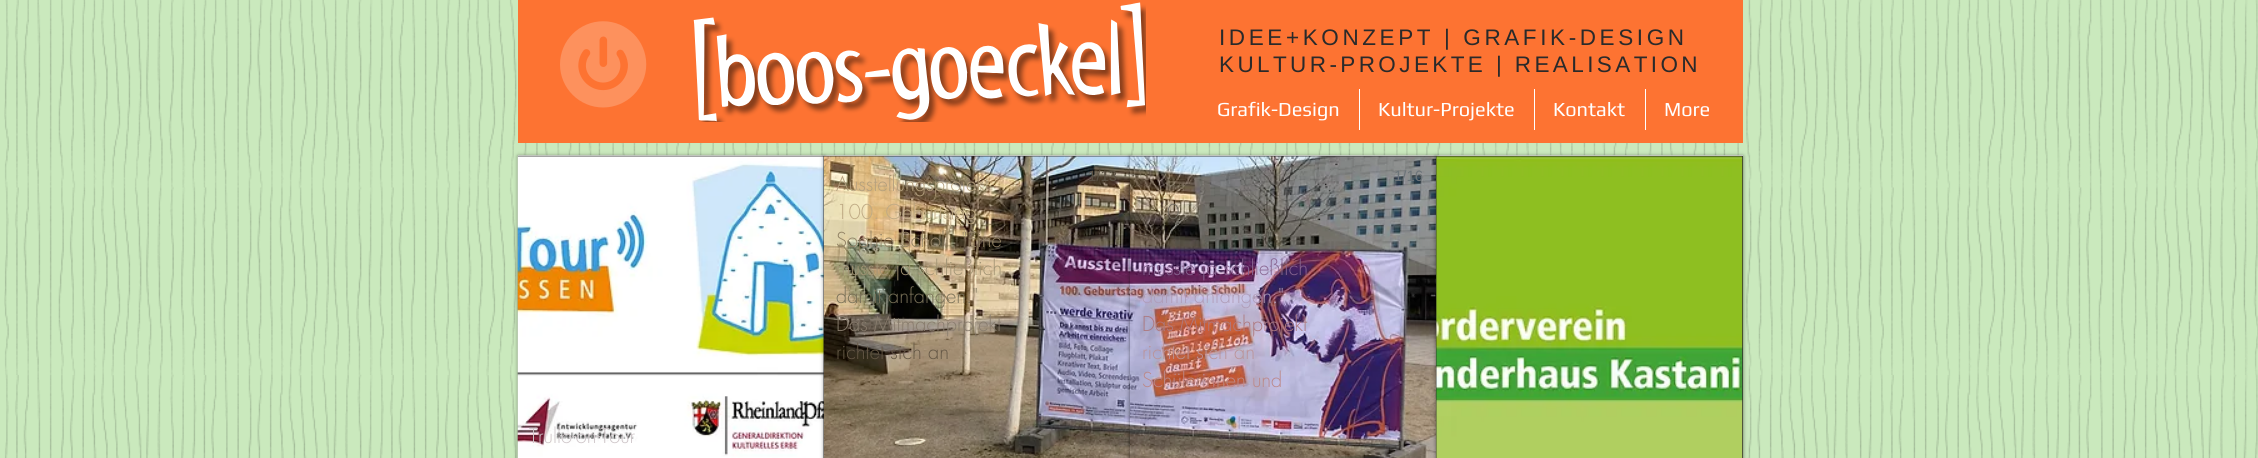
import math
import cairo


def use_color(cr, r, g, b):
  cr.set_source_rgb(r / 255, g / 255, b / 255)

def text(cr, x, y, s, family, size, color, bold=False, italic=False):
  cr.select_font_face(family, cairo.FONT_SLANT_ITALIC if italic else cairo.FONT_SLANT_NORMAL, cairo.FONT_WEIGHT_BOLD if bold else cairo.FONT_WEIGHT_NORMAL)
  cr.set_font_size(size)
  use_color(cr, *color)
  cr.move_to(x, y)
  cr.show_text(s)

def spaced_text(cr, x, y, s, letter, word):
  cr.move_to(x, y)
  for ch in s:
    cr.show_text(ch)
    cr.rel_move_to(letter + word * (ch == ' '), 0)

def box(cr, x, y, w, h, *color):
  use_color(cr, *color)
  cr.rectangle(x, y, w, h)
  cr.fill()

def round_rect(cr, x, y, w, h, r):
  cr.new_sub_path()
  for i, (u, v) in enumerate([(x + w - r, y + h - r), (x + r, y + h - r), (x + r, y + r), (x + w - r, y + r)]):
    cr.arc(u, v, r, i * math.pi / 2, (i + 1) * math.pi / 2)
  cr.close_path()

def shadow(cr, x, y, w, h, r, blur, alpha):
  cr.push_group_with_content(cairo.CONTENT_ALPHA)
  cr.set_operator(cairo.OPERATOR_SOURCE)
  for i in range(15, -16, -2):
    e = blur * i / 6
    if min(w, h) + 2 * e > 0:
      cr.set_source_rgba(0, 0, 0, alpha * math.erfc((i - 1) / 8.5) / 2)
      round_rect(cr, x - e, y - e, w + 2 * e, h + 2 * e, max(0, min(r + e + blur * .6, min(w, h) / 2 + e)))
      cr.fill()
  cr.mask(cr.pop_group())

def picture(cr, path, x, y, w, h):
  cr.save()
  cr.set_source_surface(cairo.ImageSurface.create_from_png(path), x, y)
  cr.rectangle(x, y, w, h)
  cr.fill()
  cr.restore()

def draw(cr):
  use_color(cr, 202, 233, 189)
  cr.paint()
  picture(cr, "img_01.png", 4, 0, 2254, 458)
  box(cr, 518, 0, 1225, 143, 253, 115, 50)
  picture(cr, "img_02.png", 560, 21, 87, 87)
  picture(cr, "img_03.png", 693, 2, 453, 120)
  box(cr, 1359, 89, 1, 41, 255, 255, 255)
  box(cr, 1534, 89, 1, 41, 255, 255, 255)
  box(cr, 1645, 89, 1, 41, 255, 255, 255)
  cr.set_source_rgba(1, 1, 1, 0.75)
  cr.rectangle(518, 155, 1225, 1)
  cr.fill()
  use_color(cr, 0, 0, 0)
  shadow(cr, 518, 156, 306, 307, 0, 2, 0.5)
  box(cr, 518, 156, 306, 302, 47, 46, 46)
  picture(cr, "img_07.png", 517, 156, 307, 302)
  use_color(cr, 0, 0, 0)
  shadow(cr, 824, 156, 306, 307, 0, 2, 0.5)
  box(cr, 824, 156, 306, 1, 47, 46, 46)
  picture(cr, "img_04.png", 823, 156, 307, 302)
  use_color(cr, 0, 0, 0)
  shadow(cr, 1130, 156, 306, 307, 0, 2, 0.5)
  box(cr, 1130, 156, 306, 1, 47, 46, 46)
  picture(cr, "img_05.png", 1130, 156, 306, 302)
  use_color(cr, 0, 0, 0)
  shadow(cr, 1436, 156, 307, 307, 0, 2, 0.5)
  box(cr, 1436, 156, 307, 302, 47, 46, 46)
  picture(cr, "img_06.png", 1436, 156, 307, 302)
  cr.select_font_face("Liberation Sans")
  cr.set_font_size(22.5)
  use_color(cr, 42, 42, 42)
  spaced_text(cr, 1219, 45, "IDEE+KONZEPT | GRAFIK-DESIGN", 3.6, 0)
  spaced_text(cr, 1219, 72, "KULTUR-PROJEKTE | REALISATION", 3.4, 0)
  text(cr, 1217, 116, "Grafik-Design", "Play", 20, (255, 255, 255))
  text(cr, 1378, 116, "Kultur-Projekte", "Play", 20, (255, 255, 255))
  text(cr, 1553, 116, "Kontakt", "Play", 20, (255, 255, 255))
  text(cr, 1664, 116, "More", "Play", 20, (255, 255, 255))
  text(cr, 836, 191, "Ausstellungsprojekt", "futura Light", 20, (179, 159, 125))
  text(cr, 836, 219, "100. Geburtstag", "futura Light", 20, (191, 170, 132))
  text(cr, 836, 247, "Sophie Scholl. \"Eine", "futura Light", 20, (145, 129, 100))
  text(cr, 836, 275, "musste ja schließlich", "futura Light", 20, (162, 148, 116))
  text(cr, 836, 303, "damit anfangen.\"", "futura Light", 20, (121, 113, 88))
  text(cr, 836, 331, "Das Mitmachprojekt", "futura Light", 20, (136, 124, 109))
  text(cr, 836, 359, "richtet sich an", "futura Light", 20, (100, 87, 69))
  text(cr, 1088, 181, "1/13", "Liberation Sans", 15, (90, 81, 68))
  text(cr, 1394, 181, "1/16", "Liberation Sans", 15, (108, 116, 121))
  text(cr, 1167, 219, "0", "futura Light", 20, (110, 105, 94))
  text(cr, 1267, 247, "\"", "futura Light", 20, (81, 77, 70))
  text(cr, 1142, 275, "musste ja schließlich", "futura Light", 20, (135, 100, 144))
  text(cr, 1142, 303, "damit anfangen.\"", "futura Light", 20, (175, 157, 184))
  text(cr, 1142, 331, "Das Mitmachprojekt", "futura Light", 20, (173, 121, 127))
  text(cr, 1142, 359, "richtet sich an", "futura Light", 20, (187, 147, 152))
  text(cr, 1142, 387, "Schülerinnen und", "futura Light", 20, (188, 137, 137))
  text(cr, 529, 443, "Trullo-on-Tour", "futura Light", 20, (206, 197, 200))


surface = cairo.ImageSurface(cairo.FORMAT_RGB24, 2258, 458)
cr = cairo.Context(surface)
options = cairo.FontOptions()
options.set_hint_metrics(cairo.HINT_METRICS_OFF)
options.set_hint_style(cairo.HINT_STYLE_NONE)
cr.set_font_options(options)
cr.set_miter_limit(4)
draw(cr)
surface.write_to_png("out.png")
